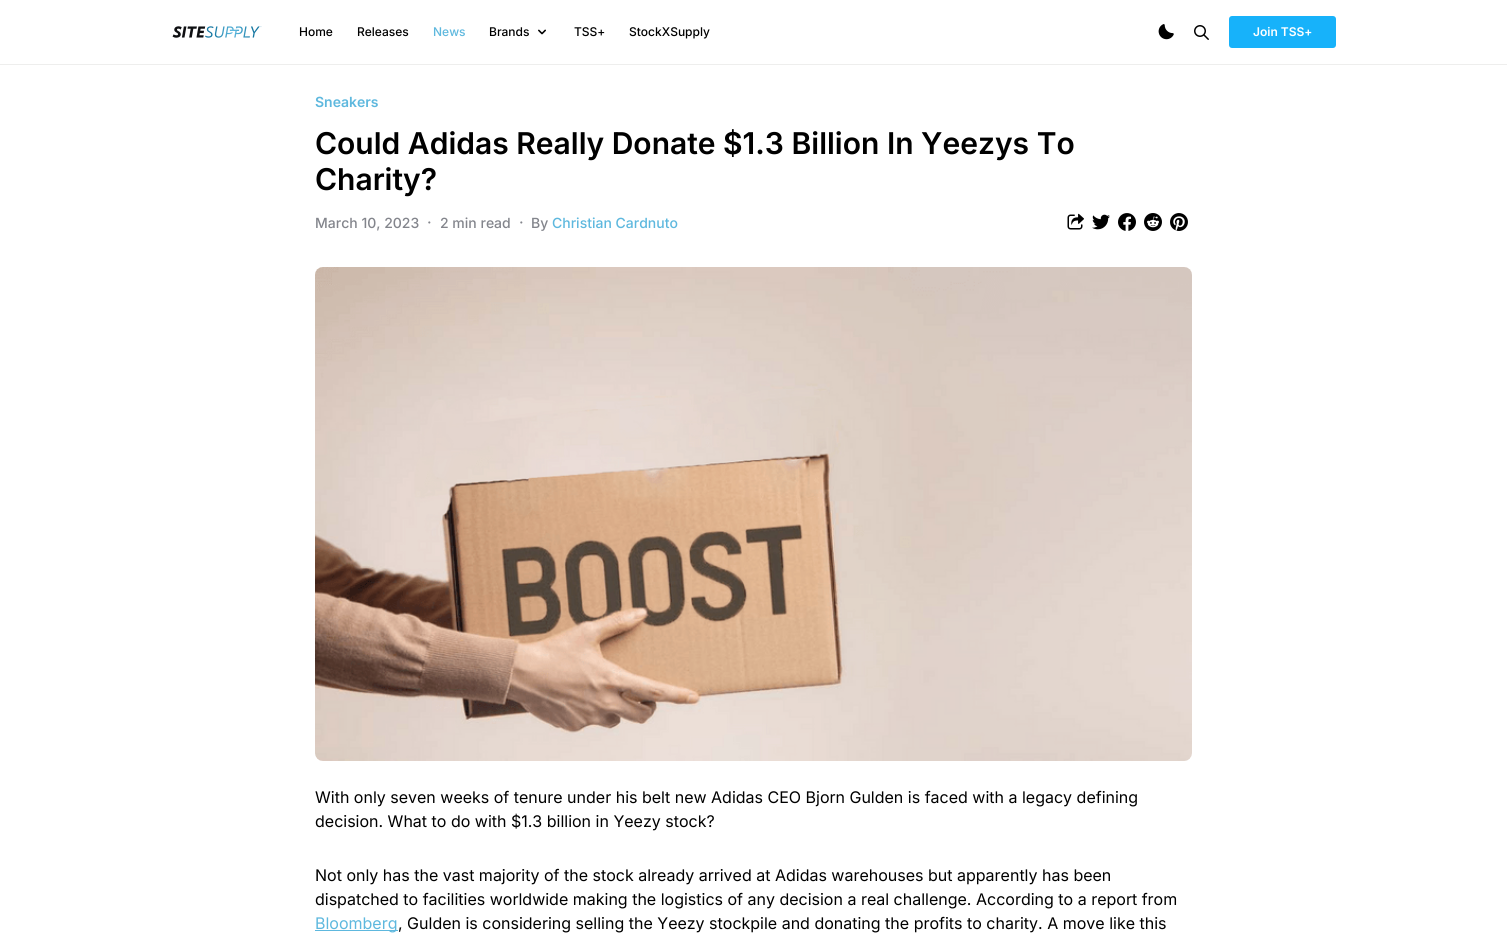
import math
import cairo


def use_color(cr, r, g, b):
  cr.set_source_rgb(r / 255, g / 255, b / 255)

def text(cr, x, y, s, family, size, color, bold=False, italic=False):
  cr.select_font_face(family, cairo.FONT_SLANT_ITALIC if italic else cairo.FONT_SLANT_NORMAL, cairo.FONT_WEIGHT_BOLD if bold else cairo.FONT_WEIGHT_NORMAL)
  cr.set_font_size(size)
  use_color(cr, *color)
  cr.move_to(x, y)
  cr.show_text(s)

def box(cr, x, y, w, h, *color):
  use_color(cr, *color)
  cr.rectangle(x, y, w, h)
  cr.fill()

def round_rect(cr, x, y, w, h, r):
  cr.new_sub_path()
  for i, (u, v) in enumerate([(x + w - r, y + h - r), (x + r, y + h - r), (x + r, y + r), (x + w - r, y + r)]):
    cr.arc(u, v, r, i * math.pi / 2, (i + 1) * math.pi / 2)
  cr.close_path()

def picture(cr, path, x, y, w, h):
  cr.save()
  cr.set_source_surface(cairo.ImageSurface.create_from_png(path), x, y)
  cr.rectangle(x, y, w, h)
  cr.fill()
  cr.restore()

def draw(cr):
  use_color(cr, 255, 255, 255)
  cr.paint()
  box(cr, 0, 64, 1507, 1, 238, 238, 237)
  picture(cr, "img_01.png", 172, 26, 90, 12)
  picture(cr, "img_02.png", 538, 29, 8, 6)
  picture(cr, "img_03.png", 1158, 24, 16, 16)
  picture(cr, "img_04.png", 1194, 25, 15, 15)
  use_color(cr, 23, 178, 250)
  round_rect(cr, 1229, 16, 107, 32, 3)
  cr.fill()
  picture(cr, "img_05.png", 1067, 213, 17, 17)
  picture(cr, "img_06.png", 1092, 214, 18, 16)
  picture(cr, "img_07.png", 1118, 213, 18, 18)
  picture(cr, "img_08.png", 1144, 213, 18, 18)
  picture(cr, "img_09.png", 1170, 213, 18, 18)
  picture(cr, "img_10.png", 315, 267, 877, 494)
  box(cr, 315, 930, 83, 1, 94, 184, 222)
  text(cr, 299, 36, "Home", "Inter Medium", 12, (0, 0, 0))
  text(cr, 357, 36, "Releases", "Inter Medium", 12, (0, 0, 0))
  text(cr, 433, 36, "News", "Inter Medium", 12, (94, 184, 222))
  text(cr, 489, 36, "Brands", "Inter Medium", 12, (0, 0, 0))
  text(cr, 574, 36, "TSS+", "Inter Medium", 12, (0, 0, 0))
  text(cr, 629, 36, "StockXSupply", "Inter Medium", 12, (0, 0, 0))
  text(cr, 1253, 36, "Join TSS+", "Inter SemiBold", 12, (255, 255, 255))
  text(cr, 315, 107, "Sneakers", "Inter SemiBold", 14, (94, 184, 222))
  text(cr, 315, 154, "Could Adidas Really Donate $1.3 Billion In Yeezys To", "Inter SemiBold", 30, (0, 0, 0))
  text(cr, 315, 190, "Charity?", "Inter SemiBold", 30, (0, 0, 0))
  text(cr, 315, 228, "March 10, 2023", "Inter Medium", 14, (131, 133, 140))
  text(cr, 427, 228, "·", "Inter", 16, (131, 133, 140))
  text(cr, 440, 228, "2 min read", "Inter Medium", 14, (131, 133, 140))
  text(cr, 519, 228, "·", "Inter", 16, (131, 133, 140))
  text(cr, 531, 228, "By", "Inter Medium", 14, (131, 133, 140))
  text(cr, 552, 228, "Christian Cardnuto", "Inter Medium", 14, (94, 184, 222))
  text(cr, 315, 803, "With only seven weeks of tenure under his belt new Adidas CEO Bjorn Gulden is faced with a legacy defining", "Inter", 16, (0, 0, 0))
  text(cr, 315, 827, "decision. What to do with $1.3 billion in Yeezy stock?", "Inter", 16, (0, 0, 0))
  text(cr, 315, 881, "Not only has the vast majority of the stock already arrived at Adidas warehouses but apparently has been", "Inter", 16, (0, 0, 0))
  text(cr, 315, 905, "dispatched to facilities worldwide making the logistics of any decision a real challenge. According to a report from", "Inter", 16, (0, 0, 0))
  text(cr, 315, 929, "Bloomberg", "Inter", 16, (94, 184, 222))
  text(cr, 398, 929, ", Gulden is considering selling the Yeezy stockpile and donating the profits to charity. A move like this", "Inter", 16, (0, 0, 0))


surface = cairo.ImageSurface(cairo.FORMAT_RGB24, 1507, 941)
cr = cairo.Context(surface)
options = cairo.FontOptions()
options.set_hint_metrics(cairo.HINT_METRICS_OFF)
options.set_hint_style(cairo.HINT_STYLE_NONE)
cr.set_font_options(options)
cr.set_miter_limit(4)
draw(cr)
surface.write_to_png("out.png")
